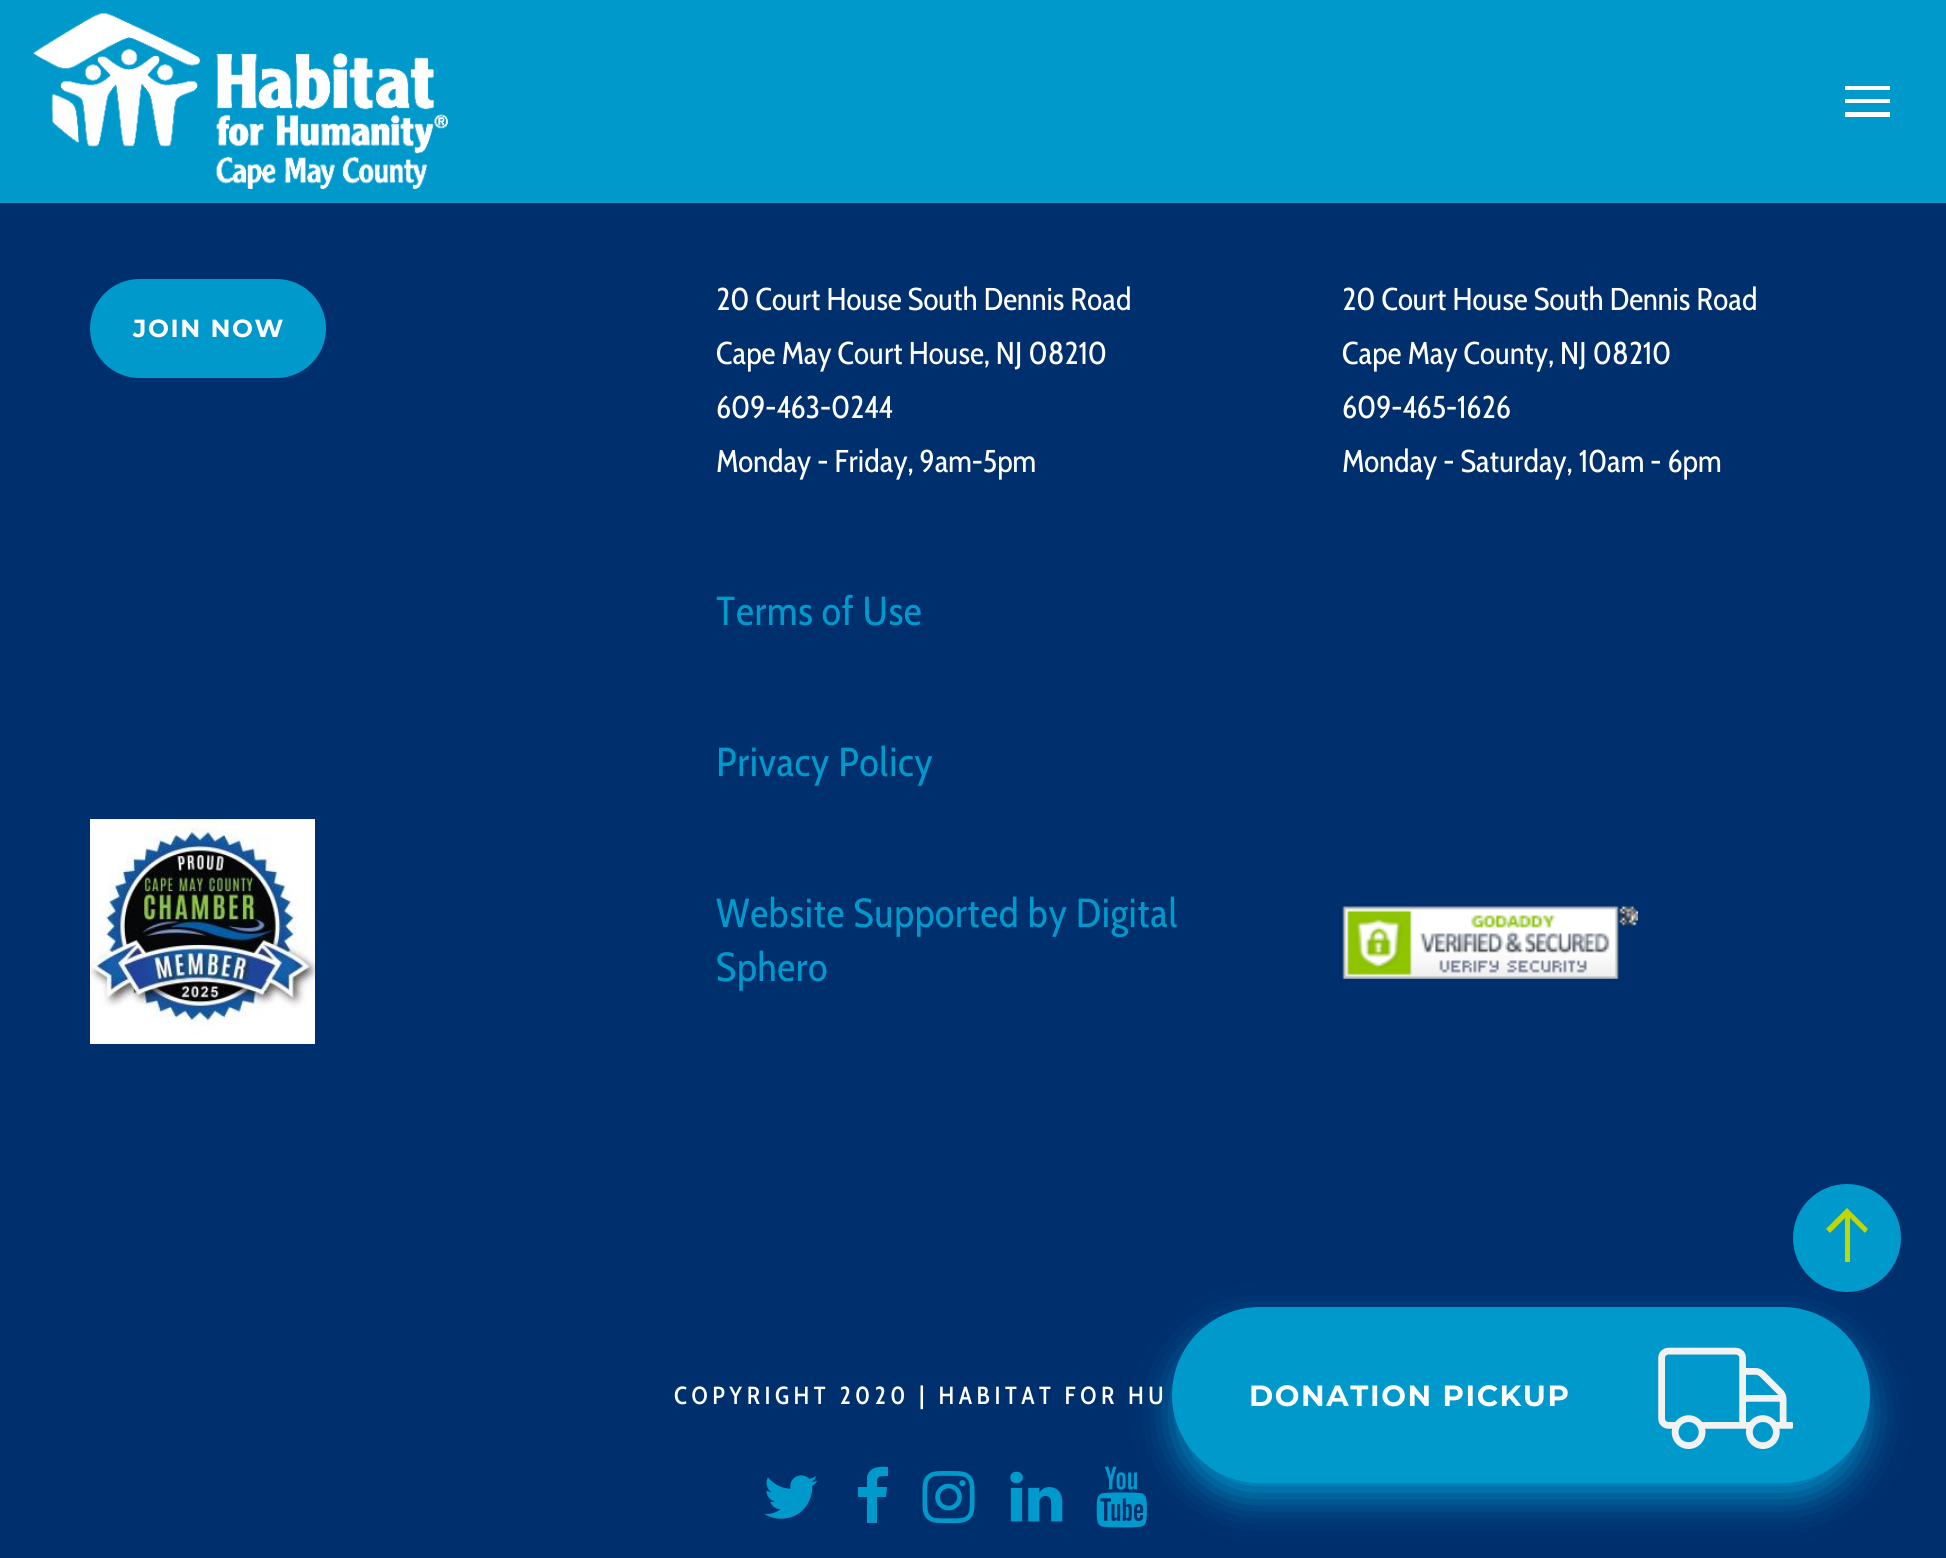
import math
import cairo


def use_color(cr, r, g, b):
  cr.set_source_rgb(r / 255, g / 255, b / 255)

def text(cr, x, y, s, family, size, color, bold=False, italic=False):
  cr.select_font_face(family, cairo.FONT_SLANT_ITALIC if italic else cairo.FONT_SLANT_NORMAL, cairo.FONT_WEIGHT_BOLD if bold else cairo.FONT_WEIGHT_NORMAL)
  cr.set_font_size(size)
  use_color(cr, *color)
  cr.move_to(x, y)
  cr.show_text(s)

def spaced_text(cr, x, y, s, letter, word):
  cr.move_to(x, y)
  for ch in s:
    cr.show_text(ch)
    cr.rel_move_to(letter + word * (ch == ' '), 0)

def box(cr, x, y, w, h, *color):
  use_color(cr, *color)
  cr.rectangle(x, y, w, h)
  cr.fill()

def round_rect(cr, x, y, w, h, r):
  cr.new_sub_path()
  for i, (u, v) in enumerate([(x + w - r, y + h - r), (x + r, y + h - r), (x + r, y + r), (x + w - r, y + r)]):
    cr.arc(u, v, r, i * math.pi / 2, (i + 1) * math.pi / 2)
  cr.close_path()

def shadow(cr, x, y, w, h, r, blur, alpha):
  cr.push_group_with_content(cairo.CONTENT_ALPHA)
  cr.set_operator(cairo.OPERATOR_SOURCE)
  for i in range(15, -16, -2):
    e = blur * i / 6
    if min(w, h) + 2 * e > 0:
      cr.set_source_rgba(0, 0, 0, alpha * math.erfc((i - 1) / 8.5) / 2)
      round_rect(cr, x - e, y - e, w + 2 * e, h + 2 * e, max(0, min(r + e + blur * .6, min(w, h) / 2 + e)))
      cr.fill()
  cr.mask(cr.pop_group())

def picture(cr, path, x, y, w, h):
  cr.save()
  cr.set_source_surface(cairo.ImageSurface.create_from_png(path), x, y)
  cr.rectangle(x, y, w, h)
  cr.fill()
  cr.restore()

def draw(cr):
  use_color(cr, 0, 47, 109)
  cr.paint()
  box(cr, 0, 0, 1946, 203, 0, 153, 204)
  picture(cr, "img_01.png", 33, 13, 415, 176)
  use_color(cr, 255, 255, 255)
  cr.new_path()
  cr.move_to(1845, 99)
  cr.line_to(1890, 99)
  cr.line_to(1890, 103)
  cr.line_to(1845, 103)
  cr.close_path()
  cr.move_to(1845, 86)
  cr.line_to(1890, 86)
  cr.line_to(1890, 90)
  cr.line_to(1845, 90)
  cr.close_path()
  cr.move_to(1845, 112)
  cr.line_to(1890, 112)
  cr.line_to(1890, 117)
  cr.line_to(1845, 117)
  cr.close_path()
  cr.fill()
  use_color(cr, 0, 153, 204)
  round_rect(cr, 90, 279, 236, 99, 49.5)
  cr.fill()
  picture(cr, "img_02.png", 90, 819, 225, 225)
  picture(cr, "img_03.png", 1342, 906, 296, 73)
  picture(cr, "img_04.png", 764, 1475, 54, 44)
  cr.new_path()
  cr.move_to(888, 1467)
  cr.curve_to(879, 1466, 869, 1467, 867, 1477)
  cr.line_to(867, 1487)
  cr.line_to(858, 1487)
  cr.line_to(858, 1497)
  cr.line_to(867, 1497)
  cr.line_to(867, 1523)
  cr.line_to(877, 1523)
  cr.line_to(877, 1497)
  cr.line_to(886, 1497)
  cr.line_to(887, 1487)
  cr.line_to(877, 1487)
  cr.curve_to(877, 1477, 876, 1476, 888, 1476)
  cr.close_path()
  cr.fill()
  picture(cr, "img_05.png", 922, 1471, 53, 53)
  picture(cr, "img_06.png", 1010, 1471, 53, 51)
  picture(cr, "img_07.png", 1096, 1466, 51, 62)
  cr.arc(1847, 1238, 54, 0, 2 * math.pi)
  cr.fill()
  use_color(cr, 196, 214, 0)
  cr.new_path()
  cr.move_to(1850, 1262)
  cr.line_to(1850, 1218)
  cr.line_to(1865, 1233)
  cr.line_to(1868, 1229)
  cr.line_to(1847, 1208)
  cr.line_to(1826, 1229)
  cr.line_to(1830, 1233)
  cr.line_to(1845, 1218)
  cr.line_to(1845, 1262)
  cr.close_path()
  cr.fill()
  use_color(cr, 0, 153, 204)
  shadow(cr, 1177, 1330, 688, 166, 83, 19, 1)
  use_color(cr, 0, 153, 204)
  round_rect(cr, 1172, 1307, 698, 176, 88)
  cr.fill()
  picture(cr, "img_08.png", 1658, 1347, 135, 102)
  cr.select_font_face("Montserrat Thin")
  cr.set_font_size(24.75)
  use_color(cr, 255, 255, 255)
  spaced_text(cr, 133, 337, "JOIN NOW", 1.6, 0)
  text(cr, 716, 310, "20 Court House South Dennis Road", "Cabin Condensed", 31.5, (255, 255, 255))
  text(cr, 716, 364, "Cape May Court House, NJ 08210", "Cabin Condensed", 31.5, (255, 255, 255))
  text(cr, 716, 418, "609-463-0244", "Cabin Condensed", 31.5, (255, 255, 255))
  text(cr, 716, 472, "Monday - Friday, 9am-5pm", "Cabin Condensed", 31.5, (255, 255, 255))
  cr.set_font_size(40.5)
  use_color(cr, 0, 153, 204)
  spaced_text(cr, 716, 625, "Terms of Use", 0.7, 0)
  spaced_text(cr, 716, 776, "Privacy Policy", 0.7, 0)
  spaced_text(cr, 716, 927, "Website Supported by Digital", 0.7, 0)
  spaced_text(cr, 716, 981, "Sphero", 0.7, 0)
  text(cr, 1342, 310, "20 Court House South Dennis Road", "Cabin Condensed", 31.5, (255, 255, 255))
  text(cr, 1342, 364, "Cape May County, NJ 08210", "Cabin Condensed", 31.5, (255, 255, 255))
  text(cr, 1342, 418, "609-465-1626", "Cabin Condensed", 31.5, (255, 255, 255))
  text(cr, 1342, 472, "Monday - Saturday, 10am - 6pm", "Cabin Condensed", 31.5, (255, 255, 255))
  cr.select_font_face("Cabin Condensed Medium")
  cr.set_font_size(24.75)
  spaced_text(cr, 674, 1404, "COPYRIGHT 2020 | HABITAT FOR HU", 4.5, 0)
  cr.select_font_face("Montserrat Thin")
  cr.set_font_size(29.25)
  spaced_text(cr, 1249, 1406, "DONATION PICKUP", 1.6, 0)


surface = cairo.ImageSurface(cairo.FORMAT_RGB24, 1946, 1558)
cr = cairo.Context(surface)
options = cairo.FontOptions()
options.set_hint_metrics(cairo.HINT_METRICS_OFF)
options.set_hint_style(cairo.HINT_STYLE_NONE)
cr.set_font_options(options)
cr.set_miter_limit(4)
draw(cr)
surface.write_to_png("out.png")
